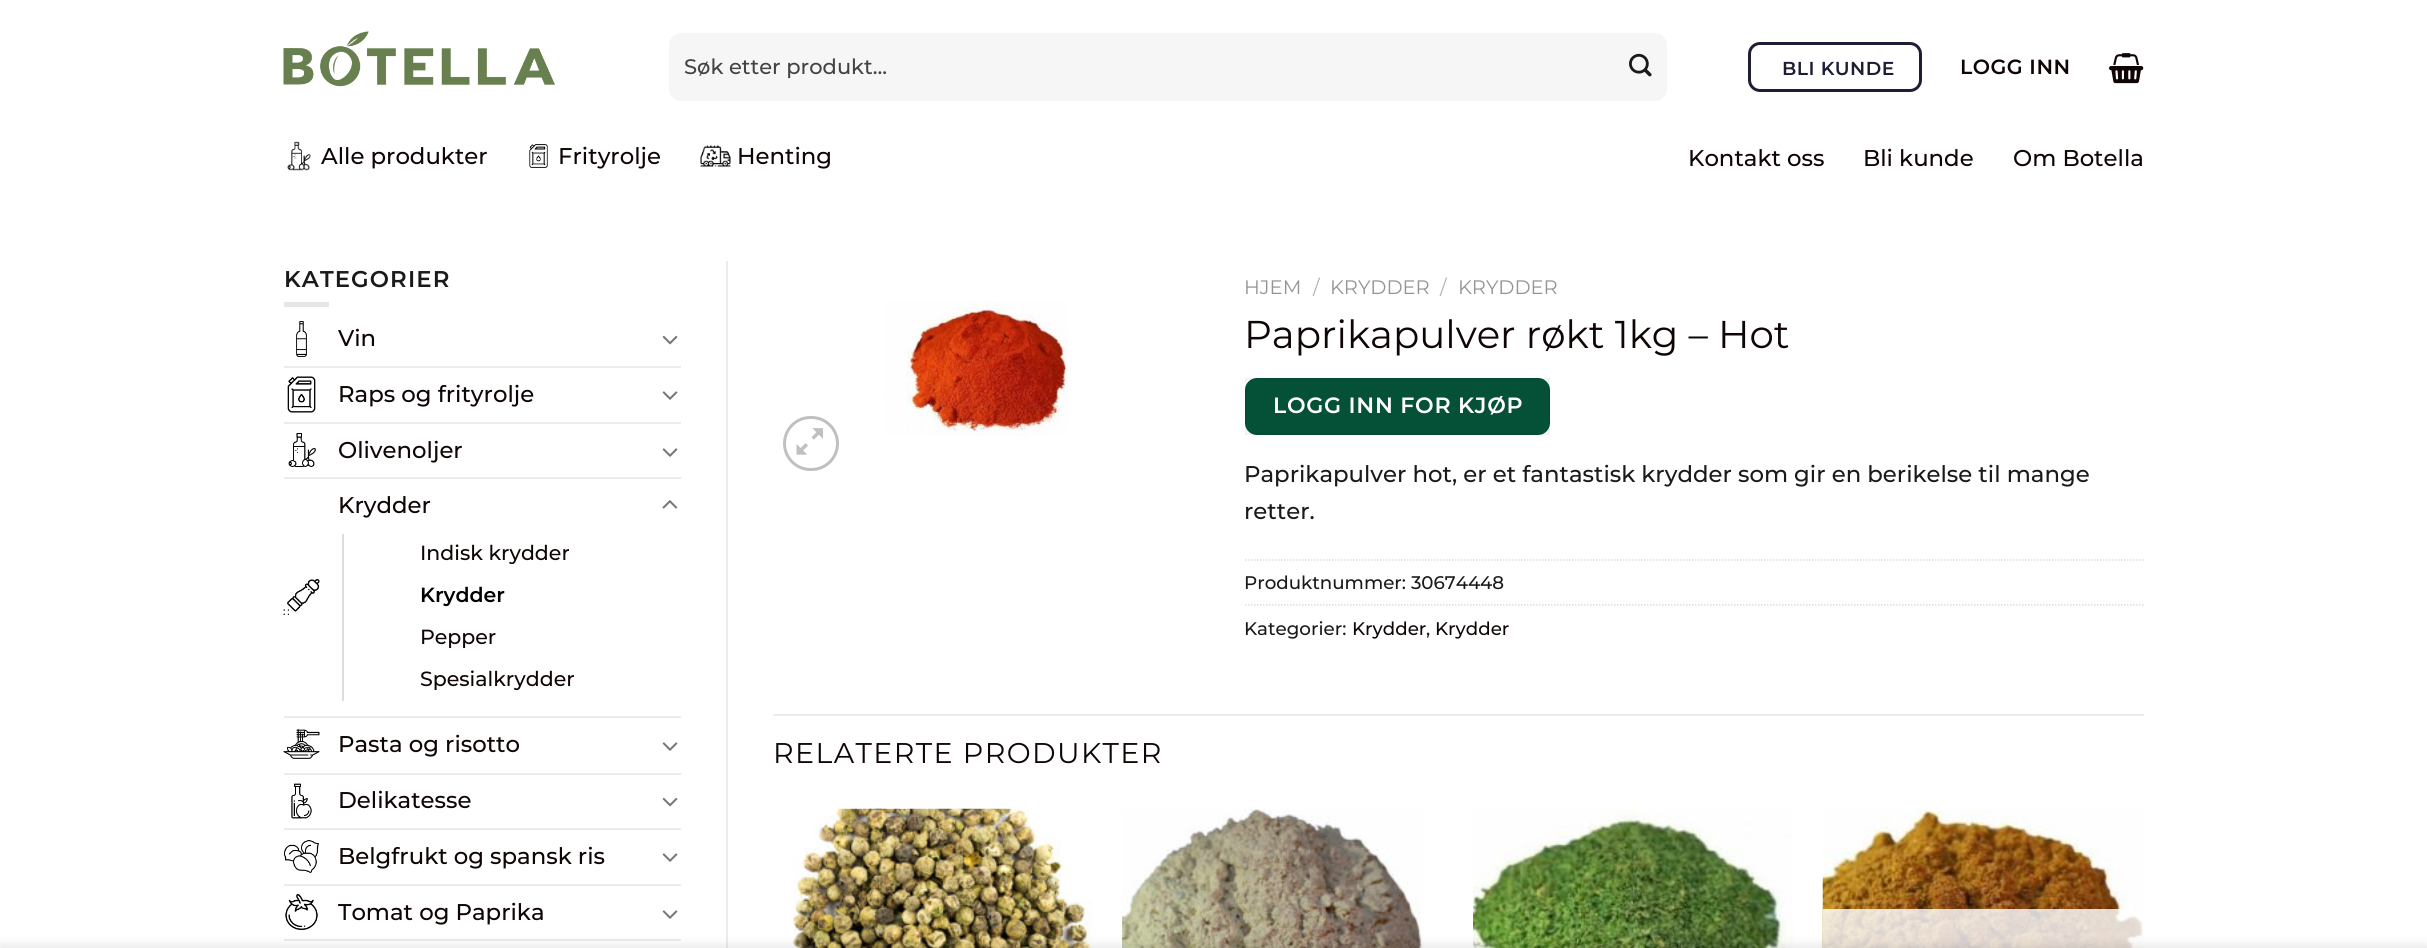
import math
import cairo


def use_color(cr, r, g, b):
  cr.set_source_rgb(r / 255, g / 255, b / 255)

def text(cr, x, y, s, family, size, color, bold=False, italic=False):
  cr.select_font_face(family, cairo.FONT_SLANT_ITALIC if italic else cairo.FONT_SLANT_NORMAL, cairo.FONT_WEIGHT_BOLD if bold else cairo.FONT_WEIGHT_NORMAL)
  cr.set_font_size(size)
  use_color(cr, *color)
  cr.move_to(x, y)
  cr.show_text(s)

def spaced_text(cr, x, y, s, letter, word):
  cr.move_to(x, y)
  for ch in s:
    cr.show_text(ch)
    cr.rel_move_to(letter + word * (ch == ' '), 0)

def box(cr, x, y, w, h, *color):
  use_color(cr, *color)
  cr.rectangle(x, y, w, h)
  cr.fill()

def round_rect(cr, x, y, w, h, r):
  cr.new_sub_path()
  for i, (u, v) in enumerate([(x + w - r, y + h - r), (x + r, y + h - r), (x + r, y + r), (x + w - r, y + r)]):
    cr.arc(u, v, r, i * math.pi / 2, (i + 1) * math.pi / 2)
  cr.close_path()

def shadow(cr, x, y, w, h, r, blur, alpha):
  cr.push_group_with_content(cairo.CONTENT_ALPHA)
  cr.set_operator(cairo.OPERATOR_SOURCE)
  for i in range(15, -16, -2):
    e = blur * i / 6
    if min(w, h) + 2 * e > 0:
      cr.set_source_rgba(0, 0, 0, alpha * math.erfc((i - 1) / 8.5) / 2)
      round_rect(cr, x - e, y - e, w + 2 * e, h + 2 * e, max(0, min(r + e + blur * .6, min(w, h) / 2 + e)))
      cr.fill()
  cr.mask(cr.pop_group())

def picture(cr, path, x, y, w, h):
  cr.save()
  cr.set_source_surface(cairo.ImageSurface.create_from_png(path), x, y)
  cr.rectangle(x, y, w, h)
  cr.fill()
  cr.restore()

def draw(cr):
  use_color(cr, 255, 255, 255)
  cr.paint()
  picture(cr, "img_01.png", 283, 31, 272, 56)
  use_color(cr, 246, 246, 246)
  round_rect(cr, 669, 33, 998, 68, 12)
  cr.fill()
  picture(cr, "img_02.png", 1629, 53, 23, 24)
  round_rect(cr, 1749.5, 43.5, 171, 47, 10.5)
  use_color(cr, 29, 29, 53)
  cr.set_line_width(3)
  cr.stroke()
  picture(cr, "img_03.png", 2109, 53, 35, 31)
  picture(cr, "img_04.png", 287, 141, 24, 30)
  picture(cr, "img_05.png", 529, 144, 19, 24)
  picture(cr, "img_06.png", 700, 145, 31, 22)
  box(cr, 284, 302, 45, 5, 230, 230, 230)
  picture(cr, "img_07.png", 296, 321, 11, 36)
  picture(cr, "img_08.png", 662, 335, 16, 10)
  picture(cr, "img_09.png", 287, 376, 29, 37)
  box(cr, 284, 366, 397, 2, 236, 236, 236)
  picture(cr, "img_10.png", 662, 391, 16, 9)
  picture(cr, "img_11.png", 288, 433, 28, 34)
  box(cr, 284, 422, 397, 2, 236, 236, 236)
  picture(cr, "img_10.png", 662, 448, 16, 9)
  picture(cr, "img_12.png", 283, 579, 37, 36)
  box(cr, 284, 477, 397, 2, 236, 236, 236)
  picture(cr, "img_13.png", 662, 500, 16, 9)
  box(cr, 342, 534, 2, 167, 221, 221, 221)
  picture(cr, "img_14.png", 283, 729, 37, 30)
  box(cr, 284, 716, 397, 2, 236, 236, 236)
  picture(cr, "img_10.png", 662, 742, 16, 9)
  picture(cr, "img_15.png", 291, 783, 21, 36)
  box(cr, 284, 773, 397, 2, 236, 236, 236)
  picture(cr, "img_08.png", 662, 797, 16, 10)
  picture(cr, "img_16.png", 284, 840, 35, 33)
  box(cr, 284, 828, 397, 2, 236, 236, 236)
  picture(cr, "img_10.png", 662, 853, 16, 9)
  picture(cr, "img_17.png", 285, 894, 33, 36)
  box(cr, 284, 884, 397, 2, 236, 236, 236)
  picture(cr, "img_10.png", 662, 910, 16, 9)
  box(cr, 284, 939, 397, 2, 236, 236, 236)
  box(cr, 726, 261, 2, 687, 236, 236, 236)
  picture(cr, "img_18.png", 885, 301, 183, 135)
  round_rect(cr, 784.5, 417.5, 53, 52, 26)
  use_color(cr, 192, 192, 192)
  cr.stroke()
  picture(cr, "img_19.png", 796, 428, 27, 27)
  use_color(cr, 4, 81, 55)
  round_rect(cr, 1245, 378, 305, 57, 12)
  cr.fill()
  cr.rectangle(1246, 379, 303, 55)
  cr.set_source_rgba(0, 0, 0, 0.05)
  cr.set_line_width(2)
  cr.stroke()
  cr.new_path()
  cr.move_to(1245, 560)
  cr.line_to(2143.5, 560)
  use_color(cr, 221, 221, 221)
  cr.set_line_width(1.5)
  cr.set_dash([1.5, 1.5])
  cr.stroke()
  cr.new_path()
  cr.move_to(1245, 605)
  cr.line_to(2143.5, 605)
  cr.stroke()
  box(cr, 773, 714, 1371, 2, 236, 236, 236)
  picture(cr, "img_20.png", 792, 808, 300, 140)
  picture(cr, "img_21.png", 1122, 809, 301, 139)
  picture(cr, "img_22.png", 1473, 809, 320, 139)
  picture(cr, "img_23.png", 1822, 809, 322, 139)
  cr.set_source_rgba(1, 1, 1, 0.81)
  cr.rectangle(1823, 909, 321, 39)
  cr.fill()
  use_color(cr, 0, 0, 0)
  shadow(cr, 0, 948, 2427, 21, 0, 7, 0.14)
  text(cr, 684, 74, "Søk etter produkt...", "Montserrat Medium", 21, (67, 66, 68))
  cr.select_font_face("Montserrat SemiBold")
  cr.set_font_size(18.75)
  use_color(cr, 29, 29, 53)
  spaced_text(cr, 1782, 75, "BLI KUNDE", 0.5, 0)
  cr.set_font_size(20.5)
  use_color(cr, 15, 5, 5)
  spaced_text(cr, 1960, 74, "LOGG INN", 0.5, 0)
  text(cr, 321, 164, "Alle produkter", "Montserrat Medium", 22.8, (15, 5, 5))
  text(cr, 558, 164, "Frityrolje", "Montserrat Medium", 22.8, (15, 5, 5))
  text(cr, 737, 164, "Henting", "Montserrat Medium", 22.8, (15, 5, 5))
  text(cr, 1688, 166, "Kontakt oss", "Montserrat Medium", 22.8, (15, 5, 5))
  text(cr, 1863, 166, "Bli kunde", "Montserrat Medium", 22.8, (15, 5, 5))
  text(cr, 2013, 166, "Om Botella", "Montserrat Medium", 22.8, (15, 5, 5))
  cr.select_font_face("Montserrat SemiBold")
  use_color(cr, 26, 26, 26)
  spaced_text(cr, 284, 287, "KATEGORIER", 1.1, 0)
  text(cr, 338, 346, "Vin", "Montserrat Medium", 22.8, (15, 5, 5))
  text(cr, 338, 402, "Raps og frityrolje", "Montserrat Medium", 22.8, (15, 5, 5))
  text(cr, 338, 458, "Olivenoljer", "Montserrat Medium", 22.8, (15, 5, 5))
  text(cr, 338, 513, "Krydder", "Montserrat Medium", 22.8, (15, 5, 5))
  text(cr, 420, 560, "Indisk krydder", "Montserrat Medium", 20.5, (15, 5, 5))
  text(cr, 420, 602, "Krydder", "Montserrat SemiBold", 20.5, (0, 0, 0))
  text(cr, 420, 644, "Pepper", "Montserrat Medium", 20.5, (15, 5, 5))
  text(cr, 420, 686, "Spesialkrydder", "Montserrat Medium", 20.5, (15, 5, 5))
  text(cr, 338, 752, "Pasta og risotto", "Montserrat Medium", 22.8, (15, 5, 5))
  text(cr, 338, 808, "Delikatesse", "Montserrat Medium", 22.8, (15, 5, 5))
  text(cr, 338, 864, "Belgfrukt og spansk ris", "Montserrat Medium", 22.8, (15, 5, 5))
  text(cr, 338, 920, "Tomat og Paprika", "Montserrat Medium", 22.8, (15, 5, 5))
  text(cr, 1244, 294, "HJEM", "Montserrat", 19.5, (148, 148, 148))
  text(cr, 1313, 294, "/", "Montserrat", 19.5, (178, 178, 178))
  text(cr, 1330, 294, "KRYDDER", "Montserrat", 19.5, (148, 148, 148))
  text(cr, 1440, 294, "/", "Montserrat", 19.5, (178, 178, 178))
  text(cr, 1458, 294, "KRYDDER", "Montserrat", 19.5, (148, 148, 148))
  text(cr, 1244, 348, "Paprikapulver røkt 1kg – Hot", "Montserrat", 38.75, (15, 5, 5))
  cr.select_font_face("Montserrat SemiBold")
  cr.set_font_size(22.1)
  use_color(cr, 255, 255, 255)
  spaced_text(cr, 1273, 413, "LOGG INN FOR KJØP", 0.7, 0)
  text(cr, 1244, 482, "Paprikapulver hot, er et fantastisk krydder som gir en berikelse til mange", "Montserrat Medium", 22.8, (26, 26, 26))
  text(cr, 1244, 519, "retter.", "Montserrat Medium", 22.8, (26, 26, 26))
  text(cr, 1244, 589, "Produktnummer: 30674448", "Montserrat Medium", 18.25, (26, 26, 26))
  text(cr, 1244, 635, "Kategorier:", "Montserrat Medium", 18.25, (26, 26, 26))
  text(cr, 1352, 635, "Krydder", "Montserrat Medium", 18.25, (15, 5, 5))
  text(cr, 1426, 635, ",", "Montserrat Medium", 18.25, (26, 26, 26))
  text(cr, 1435, 635, "Krydder", "Montserrat Medium", 18.25, (15, 5, 5))
  cr.select_font_face("Montserrat")
  cr.set_font_size(28.5)
  spaced_text(cr, 773, 763, "RELATERTE PRODUKTER", 1.4, 0)


surface = cairo.ImageSurface(cairo.FORMAT_RGB24, 2427, 948)
cr = cairo.Context(surface)
options = cairo.FontOptions()
options.set_hint_metrics(cairo.HINT_METRICS_OFF)
options.set_hint_style(cairo.HINT_STYLE_NONE)
cr.set_font_options(options)
cr.set_miter_limit(4)
draw(cr)
surface.write_to_png("out.png")
